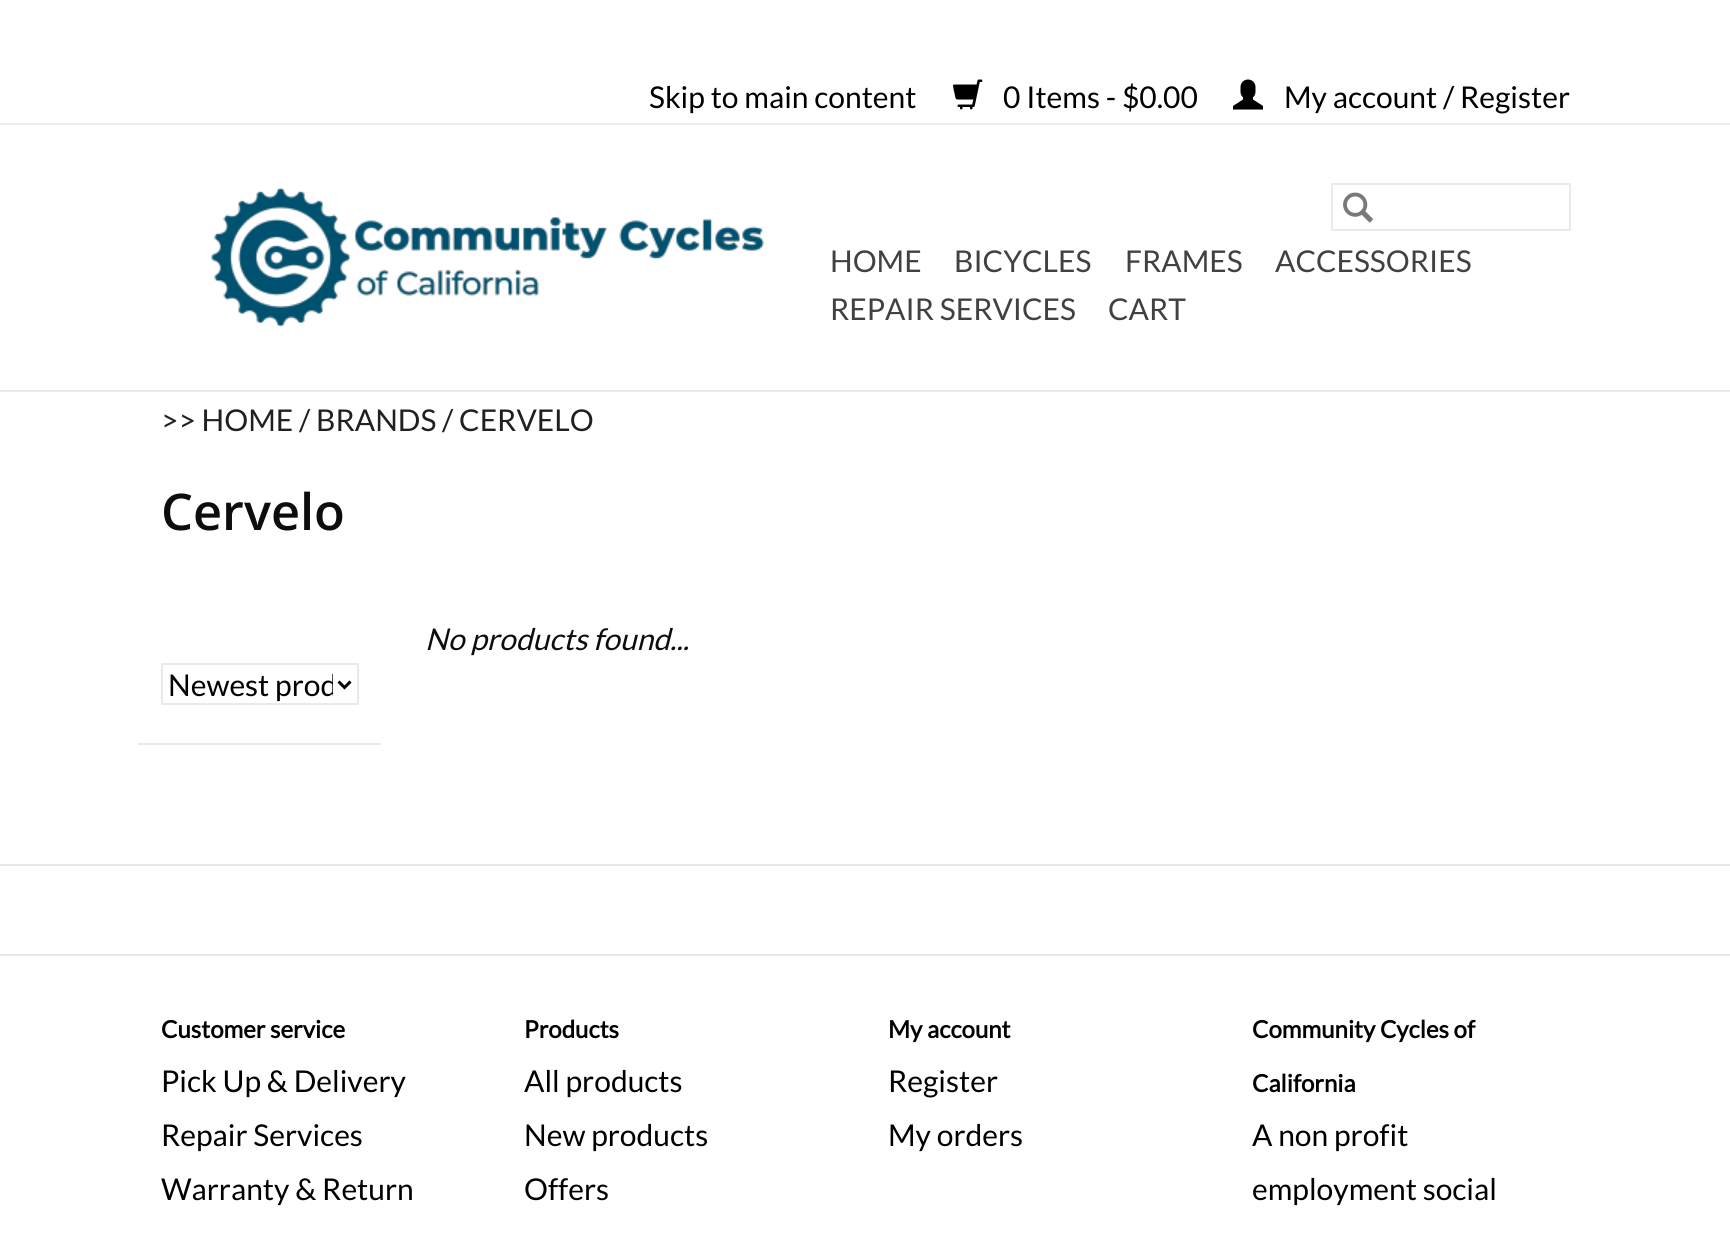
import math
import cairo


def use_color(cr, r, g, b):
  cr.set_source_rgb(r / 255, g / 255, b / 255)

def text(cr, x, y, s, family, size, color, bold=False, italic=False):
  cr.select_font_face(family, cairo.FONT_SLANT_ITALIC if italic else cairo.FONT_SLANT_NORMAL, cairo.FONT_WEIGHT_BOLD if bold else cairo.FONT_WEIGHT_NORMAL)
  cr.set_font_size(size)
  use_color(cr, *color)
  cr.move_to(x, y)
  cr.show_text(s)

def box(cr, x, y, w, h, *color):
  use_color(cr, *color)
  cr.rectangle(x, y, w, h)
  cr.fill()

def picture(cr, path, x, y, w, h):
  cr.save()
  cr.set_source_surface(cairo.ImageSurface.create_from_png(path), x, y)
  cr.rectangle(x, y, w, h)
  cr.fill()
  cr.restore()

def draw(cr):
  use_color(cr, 255, 255, 255)
  cr.paint()
  box(cr, 0, 390, 1730, 2, 234, 234, 234)
  box(cr, 0, 123, 1730, 2, 237, 237, 237)
  picture(cr, "img_01.png", 952, 79, 31, 31)
  picture(cr, "img_02.png", 1233, 79, 30, 31)
  picture(cr, "img_03.png", 211, 187, 553, 140)
  cr.rectangle(1332, 184, 238, 46)
  use_color(cr, 234, 234, 234)
  cr.stroke()
  picture(cr, "img_04.png", 1343, 192, 30, 31)
  box(cr, 138, 743, 243, 2, 234, 234, 234)
  cr.rectangle(162, 664, 196, 40)
  cr.stroke()
  cr.new_path()
  cr.move_to(338.5, 681.5)
  cr.line_to(344.5, 687.5)
  cr.line_to(350.5, 681.5)
  use_color(cr, 0, 0, 0)
  cr.set_line_width(3)
  cr.stroke()
  box(cr, 0, 864, 1730, 2, 233, 233, 233)
  box(cr, 0, 954, 1730, 2, 233, 233, 233)
  text(cr, 649, 108, "Skip to main content", "Lato", 30, (0, 0, 0))
  text(cr, 1003, 108, "0 Items - $0.00", "Lato", 30, (0, 0, 0))
  text(cr, 1284, 108, "My account / Register", "Lato", 30, (0, 0, 0))
  text(cr, 830, 272, "HOME", "Lato", 30, (65, 65, 65))
  text(cr, 954, 272, "BICYCLES", "Lato", 30, (65, 65, 65))
  text(cr, 1125, 272, "FRAMES", "Lato", 30, (65, 65, 65))
  text(cr, 1275, 272, "ACCESSORIES", "Lato", 30, (65, 65, 65))
  text(cr, 830, 320, "REPAIR SERVICES", "Lato", 30, (65, 65, 65))
  text(cr, 1108, 320, "CART", "Lato", 30, (65, 65, 65))
  text(cr, 161, 431, ">> HOME / BRANDS / CERVELO", "Lato", 30, (32, 32, 32))
  text(cr, 161, 530, "Cervelo", "Open Sans SemiBold", 50.5, (13, 13, 13))
  text(cr, 425, 650, "No products found...", "Lato", 30, (13, 13, 13), italic=True)
  cr.save()
  cr.rectangle(168, 665, 165, 39)
  cr.clip()
  text(cr, 168, 696, "Newest prod", "Lato", 30, (0, 0, 0))
  cr.restore()
  text(cr, 161, 1038, "Customer service", "Lato", 24, (0, 0, 0), bold=True)
  text(cr, 161, 1092, "Pick Up & Delivery", "Lato", 30, (0, 0, 0))
  text(cr, 161, 1146, "Repair Services", "Lato", 30, (0, 0, 0))
  text(cr, 161, 1200, "Warranty & Return", "Lato", 30, (0, 0, 0))
  text(cr, 524, 1038, "Products", "Lato", 24, (0, 0, 0), bold=True)
  text(cr, 524, 1092, "All products", "Lato", 30, (0, 0, 0))
  text(cr, 524, 1146, "New products", "Lato", 30, (0, 0, 0))
  text(cr, 524, 1200, "Offers", "Lato", 30, (0, 0, 0))
  text(cr, 888, 1038, "My account", "Lato", 24, (0, 0, 0), bold=True)
  text(cr, 888, 1092, "Register", "Lato", 30, (0, 0, 0))
  text(cr, 888, 1146, "My orders", "Lato", 30, (0, 0, 0))
  text(cr, 1252, 1038, "Community Cycles of", "Lato", 24, (0, 0, 0), bold=True)
  text(cr, 1252, 1092, "California", "Lato", 24, (0, 0, 0), bold=True)
  text(cr, 1252, 1146, "A non profit", "Lato", 30, (0, 0, 0))
  text(cr, 1252, 1200, "employment social", "Lato", 30, (0, 0, 0))


surface = cairo.ImageSurface(cairo.FORMAT_RGB24, 1730, 1233)
cr = cairo.Context(surface)
options = cairo.FontOptions()
options.set_hint_metrics(cairo.HINT_METRICS_OFF)
options.set_hint_style(cairo.HINT_STYLE_NONE)
cr.set_font_options(options)
cr.set_miter_limit(4)
draw(cr)
surface.write_to_png("out.png")
